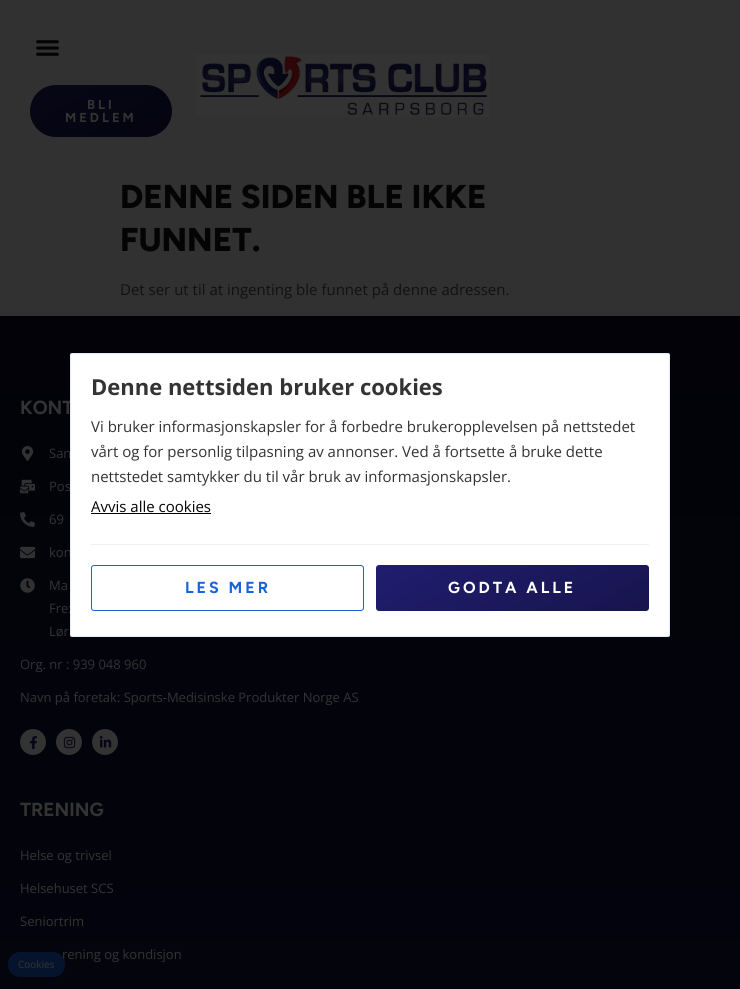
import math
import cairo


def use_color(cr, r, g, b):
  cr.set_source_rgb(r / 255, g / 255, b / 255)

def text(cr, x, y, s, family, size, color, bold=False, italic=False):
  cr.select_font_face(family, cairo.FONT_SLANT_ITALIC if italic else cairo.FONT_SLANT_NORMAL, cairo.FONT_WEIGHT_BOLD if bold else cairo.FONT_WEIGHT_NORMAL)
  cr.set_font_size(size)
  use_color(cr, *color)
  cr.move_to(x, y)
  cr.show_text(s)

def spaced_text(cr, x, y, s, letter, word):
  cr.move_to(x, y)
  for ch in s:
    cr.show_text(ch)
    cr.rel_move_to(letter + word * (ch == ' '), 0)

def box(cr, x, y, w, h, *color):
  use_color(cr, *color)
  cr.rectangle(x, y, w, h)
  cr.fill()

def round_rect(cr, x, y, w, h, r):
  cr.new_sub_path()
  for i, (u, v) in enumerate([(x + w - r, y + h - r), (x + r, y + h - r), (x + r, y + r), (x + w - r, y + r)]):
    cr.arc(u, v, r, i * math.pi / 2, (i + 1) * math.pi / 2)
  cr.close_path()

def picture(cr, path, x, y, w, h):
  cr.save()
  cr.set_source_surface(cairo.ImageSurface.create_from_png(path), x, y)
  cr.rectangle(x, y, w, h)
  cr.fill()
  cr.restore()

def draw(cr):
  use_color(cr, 49, 49, 49)
  cr.paint()
  picture(cr, "img_01.png", 36, 40, 23, 16)
  gradient = cairo.LinearGradient(72, 61, 130, 161)
  gradient.add_color_stop_rgba(0, 0.024, 0.024, 0.086, 1)
  gradient.add_color_stop_rgba(1, 0.02, 0.016, 0.059, 1)
  cr.set_source(gradient)
  round_rect(cr, 30, 85, 142, 52, 26)
  cr.fill()
  picture(cr, "img_02.png", 196, 54, 294, 63)
  gradient = cairo.LinearGradient(370, 321, 370, 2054)
  gradient.add_color_stop_rgba(0, 0.008, 0.008, 0.031, 1)
  gradient.add_color_stop_rgba(1, 0.024, 0.024, 0.086, 1)
  cr.set_source(gradient)
  cr.rectangle(0, 321, 740, 668)
  cr.fill()
  box(cr, 0, 316, 740, 5, 2, 2, 8)
  picture(cr, "img_03.png", 21, 446, 13, 15)
  picture(cr, "img_04.png", 20, 479, 15, 15)
  picture(cr, "img_05.png", 20, 512, 15, 15)
  picture(cr, "img_06.png", 20, 546, 15, 13)
  picture(cr, "img_07.png", 20, 578, 15, 15)
  use_color(cr, 51, 51, 51)
  cr.arc(33, 742, 13, 0, 2 * math.pi)
  cr.fill()
  picture(cr, "img_08.png", 30, 736, 7, 13)
  cr.arc(69, 742, 13, 0, 2 * math.pi)
  cr.fill()
  picture(cr, "img_09.png", 63, 736, 13, 13)
  cr.arc(105, 742, 13, 0, 2 * math.pi)
  cr.fill()
  picture(cr, "img_10.png", 99, 736, 13, 12)
  cr.select_font_face("Figtree", cairo.FONT_SLANT_NORMAL, cairo.FONT_WEIGHT_BOLD)
  cr.set_font_size(13)
  spaced_text(cr, 87, 109, "BLI", 3, 0)
  spaced_text(cr, 65, 122, "MEDLEM", 3, 0)
  text(cr, 120, 208, "DENNE SIDEN BLE IKKE", "Figtree ExtraBold", 33, (4, 4, 4))
  text(cr, 120, 251, "FUNNET.", "Figtree ExtraBold", 33, (4, 4, 4))
  text(cr, 120, 295, "Det ser ut til at ingenting ble funnet på denne adressen.", "Open Sans", 15, (17, 17, 17))
  text(cr, 20, 414, "KONT", "Figtree", 19, (51, 51, 51), bold=True)
  text(cr, 49, 458, "San", "Open Sans", 13, (51, 51, 51))
  text(cr, 49, 491, "Pos", "Open Sans", 13, (51, 51, 51))
  text(cr, 49, 524, "69", "Open Sans", 13, (51, 51, 51))
  text(cr, 49, 557, "kon", "Open Sans", 13, (51, 51, 51))
  text(cr, 49, 590, "Ma", "Open Sans", 13, (51, 51, 51))
  text(cr, 49, 613, "Fre:", "Open Sans", 13, (51, 51, 51))
  use_color(cr, 255, 255, 255)
  round_rect(cr, 70, 353, 600, 284, 2)
  cr.fill()
  round_rect(cr, 70.5, 353.5, 599, 283, 1.5)
  cr.set_source_rgba(0.094, 0.388, 0.863, 0.12)
  cr.set_line_width(1)
  cr.stroke()
  gradient = cairo.LinearGradient(468, 512, 557, 664)
  gradient.add_color_stop_rgba(0, 0.125, 0.114, 0.431, 1)
  gradient.add_color_stop_rgba(1, 0.09, 0.082, 0.302, 1)
  cr.set_source(gradient)
  round_rect(cr, 376, 565, 273, 46, 3)
  cr.fill()
  cr.select_font_face("Figtree", cairo.FONT_SLANT_NORMAL, cairo.FONT_WEIGHT_BOLD)
  cr.set_font_size(16)
  use_color(cr, 255, 255, 255)
  spaced_text(cr, 448, 593, "GODTA ALLE", 3, 0)
  round_rect(cr, 91.5, 565.5, 272, 45, 2.5)
  use_color(cr, 24, 99, 220)
  cr.stroke()
  spaced_text(cr, 185, 593, "LES MER", 3, 0)
  box(cr, 91, 544, 558, 1, 240, 240, 240)
  text(cr, 91, 512, "Avvis alle cookies", "Open Sans", 15, (4, 4, 4))
  box(cr, 91, 513, 120, 1, 0, 0, 0)
  text(cr, 91, 482, "nettstedet samtykker du til vår bruk av informasjonskapsler.", "Open Sans", 15, (51, 51, 51))
  text(cr, 91, 457, "vårt og for personlig tilpasning av annonser. Ved å fortsette å bruke dette", "Open Sans", 15, (51, 51, 51))
  text(cr, 91, 432, "Vi bruker informasjonskapsler for å forbedre brukeropplevelsen på nettstedet", "Open Sans", 15, (51, 51, 51))
  text(cr, 91, 395, "Denne nettsiden bruker cookies", "Open Sans", 22, (51, 51, 51), bold=True)
  text(cr, 49, 636, "Lør", "Open Sans", 13, (51, 51, 51))
  text(cr, 20, 669, "Org. nr : 939 048 960", "Open Sans", 13, (51, 51, 51))
  text(cr, 20, 702, "Navn på foretak: Sports-Medisinske Produkter Norge AS", "Open Sans", 13, (51, 51, 51))
  text(cr, 20, 816, "TRENING", "Figtree", 19, (51, 51, 51), bold=True)
  text(cr, 20, 860, "Helse og trivsel", "Open Sans", 13, (51, 51, 51))
  text(cr, 20, 893, "Helsehuset SCS", "Open Sans", 13, (51, 51, 51))
  text(cr, 20, 926, "Seniortrim", "Open Sans", 13, (51, 51, 51))
  text(cr, 62, 959, "rening og kondisjon", "Open Sans", 13, (51, 51, 51))
  use_color(cr, 5, 20, 44)
  round_rect(cr, 8, 952, 57, 25, 12)
  cr.fill()
  text(cr, 18, 968, "Cookies", "Open Sans", 10, (51, 51, 51))


surface = cairo.ImageSurface(cairo.FORMAT_RGB24, 740, 989)
cr = cairo.Context(surface)
options = cairo.FontOptions()
options.set_hint_metrics(cairo.HINT_METRICS_OFF)
options.set_hint_style(cairo.HINT_STYLE_NONE)
cr.set_font_options(options)
cr.set_miter_limit(4)
draw(cr)
surface.write_to_png("out.png")
